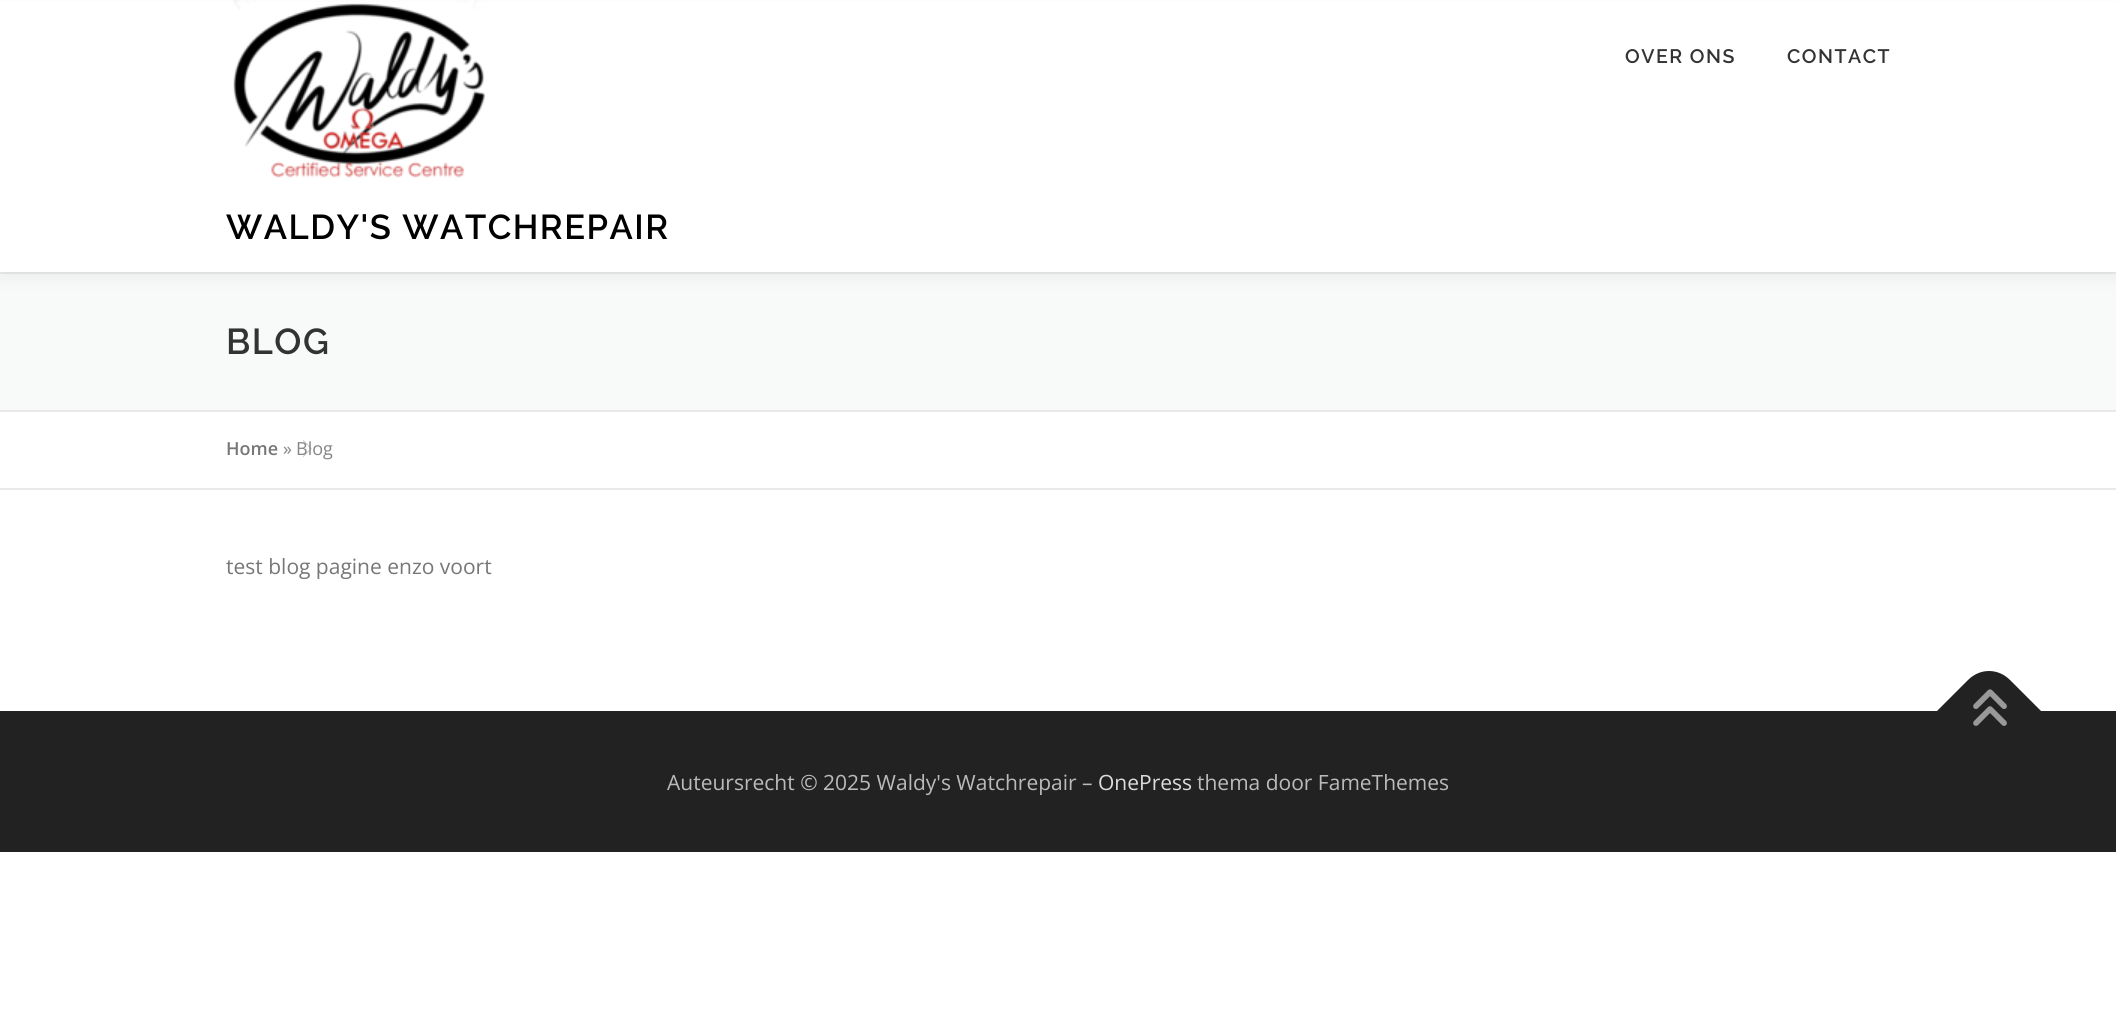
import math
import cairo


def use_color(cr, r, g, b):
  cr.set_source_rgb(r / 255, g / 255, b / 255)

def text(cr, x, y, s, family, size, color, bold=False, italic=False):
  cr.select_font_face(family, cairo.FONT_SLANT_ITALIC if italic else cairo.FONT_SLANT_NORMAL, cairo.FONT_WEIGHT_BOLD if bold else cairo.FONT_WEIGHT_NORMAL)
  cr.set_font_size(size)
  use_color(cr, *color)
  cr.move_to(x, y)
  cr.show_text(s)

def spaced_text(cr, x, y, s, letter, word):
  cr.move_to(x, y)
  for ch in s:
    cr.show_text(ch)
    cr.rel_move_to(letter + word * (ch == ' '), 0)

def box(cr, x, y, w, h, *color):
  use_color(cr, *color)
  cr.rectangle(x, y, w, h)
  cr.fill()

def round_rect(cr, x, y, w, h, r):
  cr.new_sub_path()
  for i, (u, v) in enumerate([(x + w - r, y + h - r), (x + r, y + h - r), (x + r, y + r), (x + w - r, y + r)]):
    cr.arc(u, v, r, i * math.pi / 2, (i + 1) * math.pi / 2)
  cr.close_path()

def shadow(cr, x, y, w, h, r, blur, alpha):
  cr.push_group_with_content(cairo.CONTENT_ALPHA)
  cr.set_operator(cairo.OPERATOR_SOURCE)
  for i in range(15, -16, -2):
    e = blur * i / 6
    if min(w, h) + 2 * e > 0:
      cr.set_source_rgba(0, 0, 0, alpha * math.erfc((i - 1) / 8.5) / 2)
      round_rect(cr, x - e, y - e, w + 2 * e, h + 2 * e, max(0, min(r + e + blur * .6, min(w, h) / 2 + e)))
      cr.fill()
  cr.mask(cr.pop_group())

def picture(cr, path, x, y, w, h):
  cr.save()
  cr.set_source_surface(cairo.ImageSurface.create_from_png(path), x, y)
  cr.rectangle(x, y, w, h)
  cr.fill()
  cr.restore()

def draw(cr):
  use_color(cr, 255, 255, 255)
  cr.paint()
  box(cr, 0, 274, 2116, 136, 248, 249, 249)
  box(cr, 0, 272, 2116, 2, 233, 233, 233)
  use_color(cr, 50, 50, 50)
  shadow(cr, 0, 8, 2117, 271, 0, 7.5, 0.06)
  box(cr, 0, 2, 2116, 270, 255, 255, 255)
  picture(cr, "img_01.png", 233, 0, 252, 178)
  box(cr, 0, 410, 2116, 2, 233, 233, 233)
  box(cr, 0, 488, 2116, 2, 233, 233, 233)
  use_color(cr, 204, 204, 204)
  cr.new_path()
  cr.move_to(303, 457.5)
  cr.line_to(303, 439.5)
  cr.line_to(312, 448.5)
  cr.close_path()
  cr.fill()
  use_color(cr, 255, 255, 255)
  cr.new_path()
  cr.move_to(303, 456)
  cr.line_to(303, 441)
  cr.line_to(310.5, 448.5)
  cr.close_path()
  cr.fill()
  box(cr, 0, 711, 2116, 141, 34, 34, 34)
  cr.new_path()
  cr.move_to(1936, 712)
  cr.line_to(1968, 680)
  cr.curve_to(1980, 668, 1998, 668, 2010, 680)
  cr.line_to(2042, 712)
  cr.line_to(1989, 765)
  cr.close_path()
  cr.fill()
  picture(cr, "img_02.png", 1973, 689, 34, 37)
  cr.select_font_face("Raleway SemiBold")
  cr.set_font_size(19.5)
  use_color(cr, 51, 51, 51)
  spaced_text(cr, 1625, 63, "OVER ONS", 1.5, 0)
  spaced_text(cr, 1787, 63, "CONTACT", 1.5, 0)
  cr.set_font_size(34.5)
  use_color(cr, 0, 0, 0)
  spaced_text(cr, 226, 239, "WALDY'S WATCHREPAIR", 1.5, 0)
  cr.set_font_size(36)
  use_color(cr, 51, 51, 51)
  spaced_text(cr, 226, 354, "BLOG", 1.5, 0)
  text(cr, 226, 455, "Home", "Open Sans SemiBold", 18, (119, 119, 119))
  text(cr, 283, 455, "»", "Open Sans", 18, (133, 133, 133))
  text(cr, 296, 455, "Blog", "Open Sans", 18, (133, 133, 133))
  text(cr, 226, 574, "test blog pagine enzo voort", "Open Sans", 21, (119, 119, 119))
  text(cr, 667, 790, "Auteursrecht © 2025 Waldy's Watchrepair –", "Open Sans", 21, (187, 187, 187))
  text(cr, 1098, 790, "OnePress", "Open Sans", 21, (221, 221, 221))
  text(cr, 1197, 790, "thema door FameThemes", "Open Sans", 21, (187, 187, 187))


surface = cairo.ImageSurface(cairo.FORMAT_RGB24, 2116, 1026)
cr = cairo.Context(surface)
options = cairo.FontOptions()
options.set_hint_metrics(cairo.HINT_METRICS_OFF)
options.set_hint_style(cairo.HINT_STYLE_NONE)
cr.set_font_options(options)
cr.set_miter_limit(4)
draw(cr)
surface.write_to_png("out.png")
